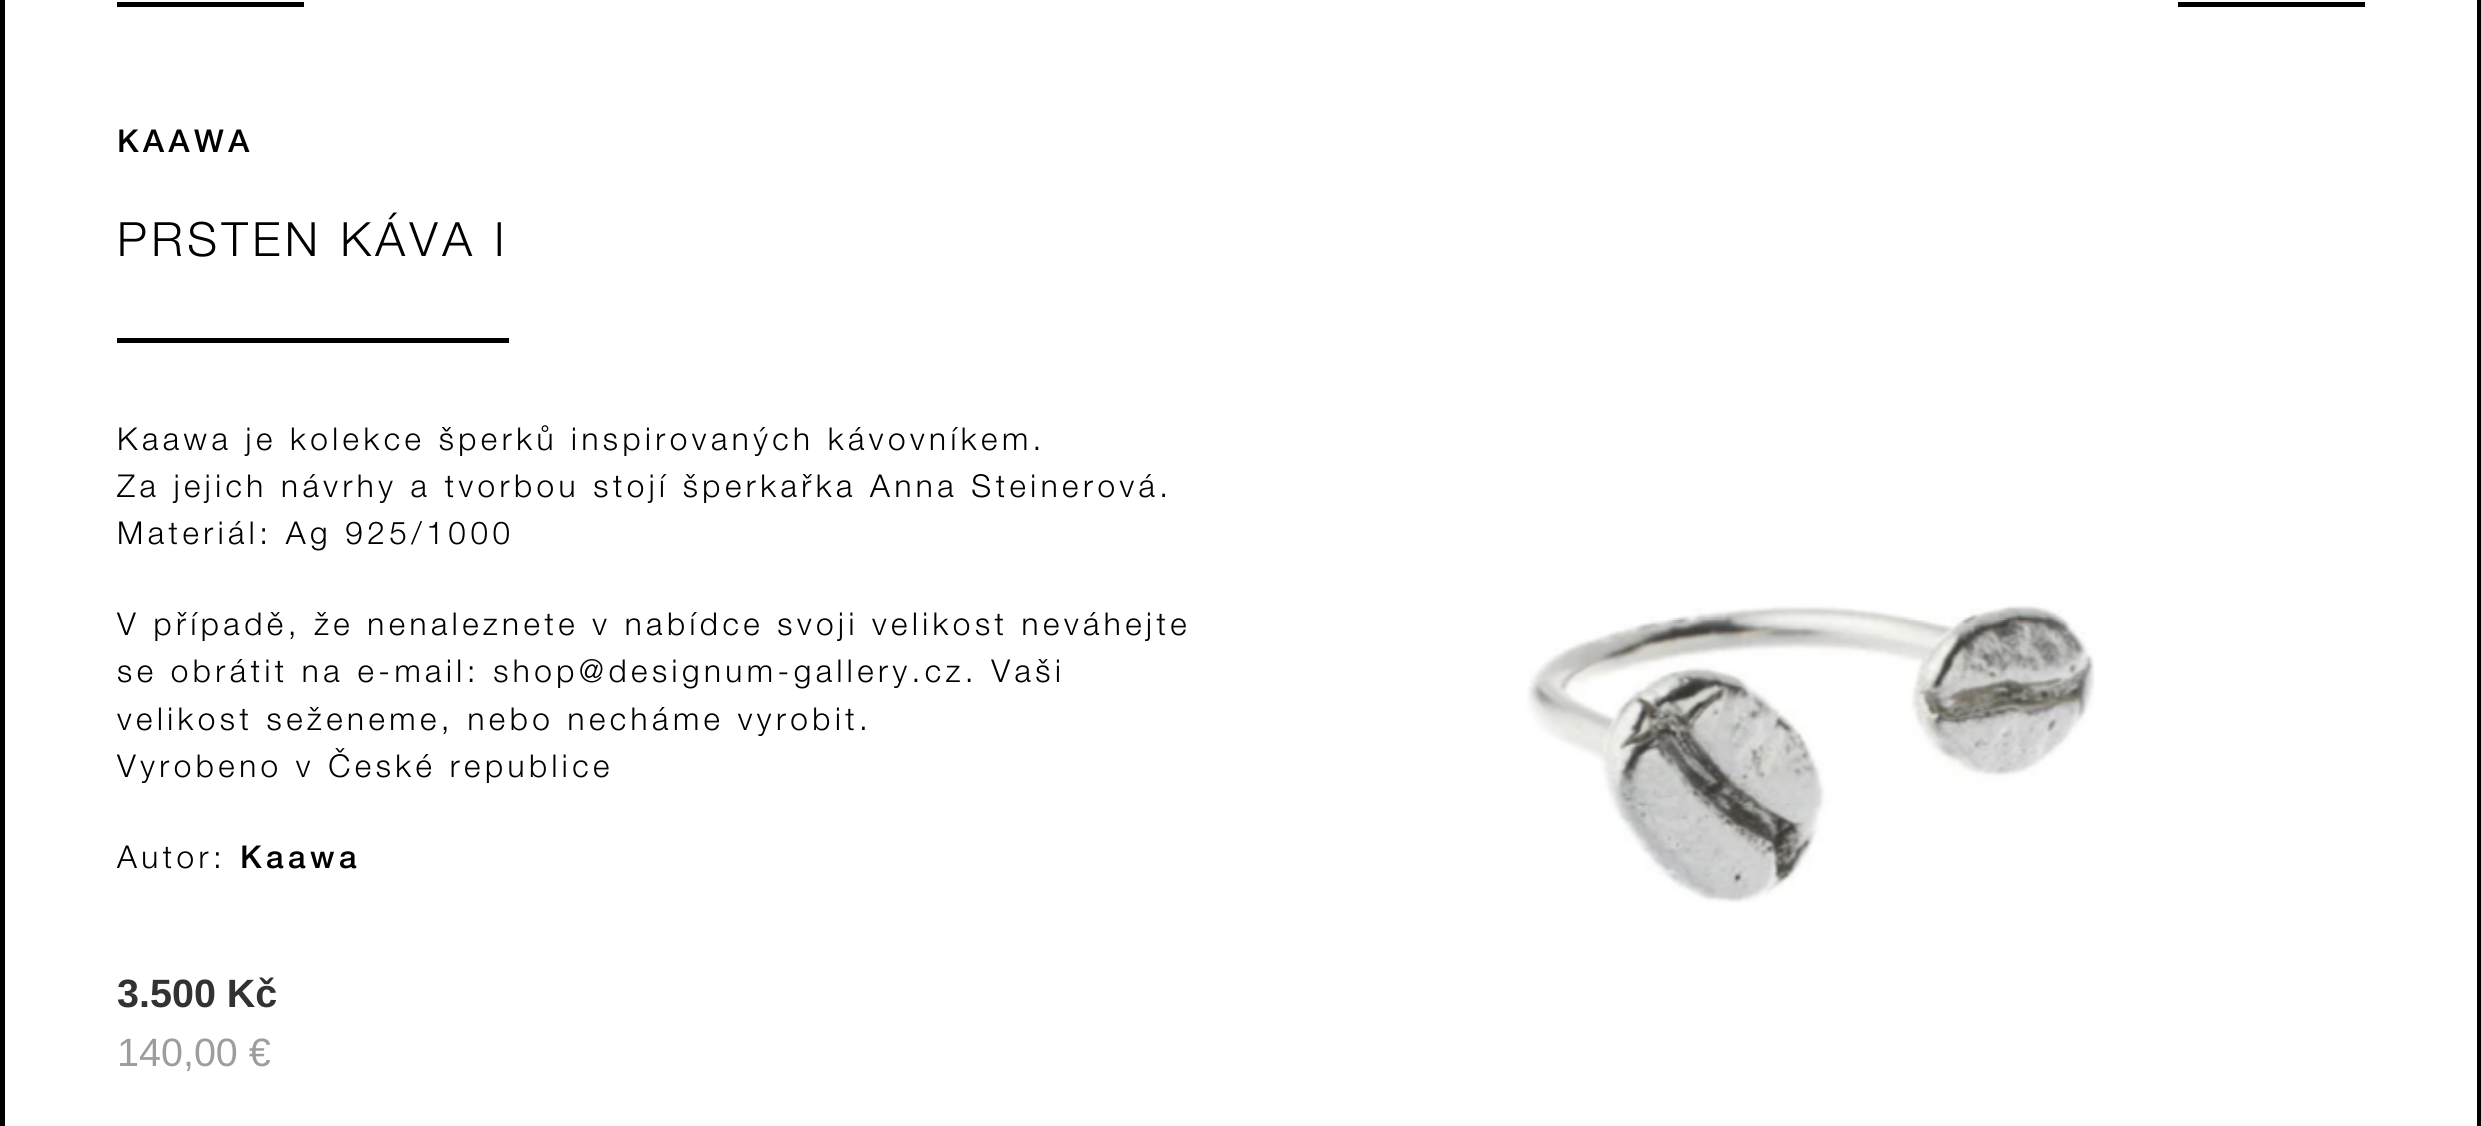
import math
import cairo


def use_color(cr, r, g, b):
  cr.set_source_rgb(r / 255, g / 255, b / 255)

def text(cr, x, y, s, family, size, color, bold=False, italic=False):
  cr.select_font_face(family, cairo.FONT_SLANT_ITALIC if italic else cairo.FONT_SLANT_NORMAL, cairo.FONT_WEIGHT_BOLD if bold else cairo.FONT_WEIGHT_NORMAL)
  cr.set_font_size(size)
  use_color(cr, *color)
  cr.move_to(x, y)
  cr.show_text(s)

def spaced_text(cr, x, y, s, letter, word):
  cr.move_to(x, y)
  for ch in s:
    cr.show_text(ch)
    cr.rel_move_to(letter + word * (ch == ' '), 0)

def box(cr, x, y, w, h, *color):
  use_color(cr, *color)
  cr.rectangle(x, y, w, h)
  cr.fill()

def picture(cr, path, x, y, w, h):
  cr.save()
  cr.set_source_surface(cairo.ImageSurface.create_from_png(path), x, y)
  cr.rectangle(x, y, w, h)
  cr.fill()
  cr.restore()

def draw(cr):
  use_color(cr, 255, 255, 255)
  cr.paint()
  cr.rectangle(2.5, -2.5, 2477, 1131)
  use_color(cr, 0, 0, 0)
  cr.set_line_width(5)
  cr.stroke()
  box(cr, 117, 2, 2248, 5, 0, 0, 0)
  box(cr, 304, 2, 1874, 5, 255, 255, 255)
  box(cr, 117, 338, 392, 5, 0, 0, 0)
  picture(cr, "img_01.png", 1527, 603, 568, 300)
  cr.select_font_face("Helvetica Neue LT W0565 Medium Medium")
  cr.set_font_size(31.5)
  spaced_text(cr, 117, 152, "KAAWA", 4.5, 0)
  cr.select_font_face("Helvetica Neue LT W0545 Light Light")
  cr.set_font_size(47.25)
  spaced_text(cr, 117, 256, "PRSTEN KÁVA I", 4.5, 0)
  cr.set_font_size(31.5)
  spaced_text(cr, 117, 450, "Kaawa je kolekce šperků inspirovaných kávovníkem.", 4.5, 0)
  spaced_text(cr, 117, 497, "Za jejich návrhy a tvorbou stojí šperkařka Anna Steinerová.", 4.5, 0)
  spaced_text(cr, 117, 544, "Materiál: Ag 925/1000", 4.5, 0)
  spaced_text(cr, 117, 635, "V případě, že nenaleznete v nabídce svoji velikost neváhejte", 4.5, 0)
  spaced_text(cr, 117, 682, "se obrátit na e-mail: shop@designum-gallery.cz. Vaši", 4.5, 0)
  spaced_text(cr, 117, 730, "velikost seženeme, nebo necháme vyrobit.", 4.5, 0)
  spaced_text(cr, 117, 777, "Vyrobeno v České republice", 4.5, 0)
  spaced_text(cr, 117, 868, "Autor:", 4.5, 0)
  cr.select_font_face("Helvetica Neue LT W0565 Medium Medium")
  spaced_text(cr, 240, 868, "Kaawa", 4.5, 0)
  text(cr, 117, 1007, "3.500 Kč", "Liberation Sans", 39.5, (51, 50, 50), bold=True)
  text(cr, 117, 1066, "140,00 €", "Liberation Sans", 39.5, (157, 157, 157))


surface = cairo.ImageSurface(cairo.FORMAT_RGB24, 2481, 1126)
cr = cairo.Context(surface)
options = cairo.FontOptions()
options.set_hint_metrics(cairo.HINT_METRICS_OFF)
options.set_hint_style(cairo.HINT_STYLE_NONE)
cr.set_font_options(options)
cr.set_miter_limit(4)
draw(cr)
surface.write_to_png("out.png")
